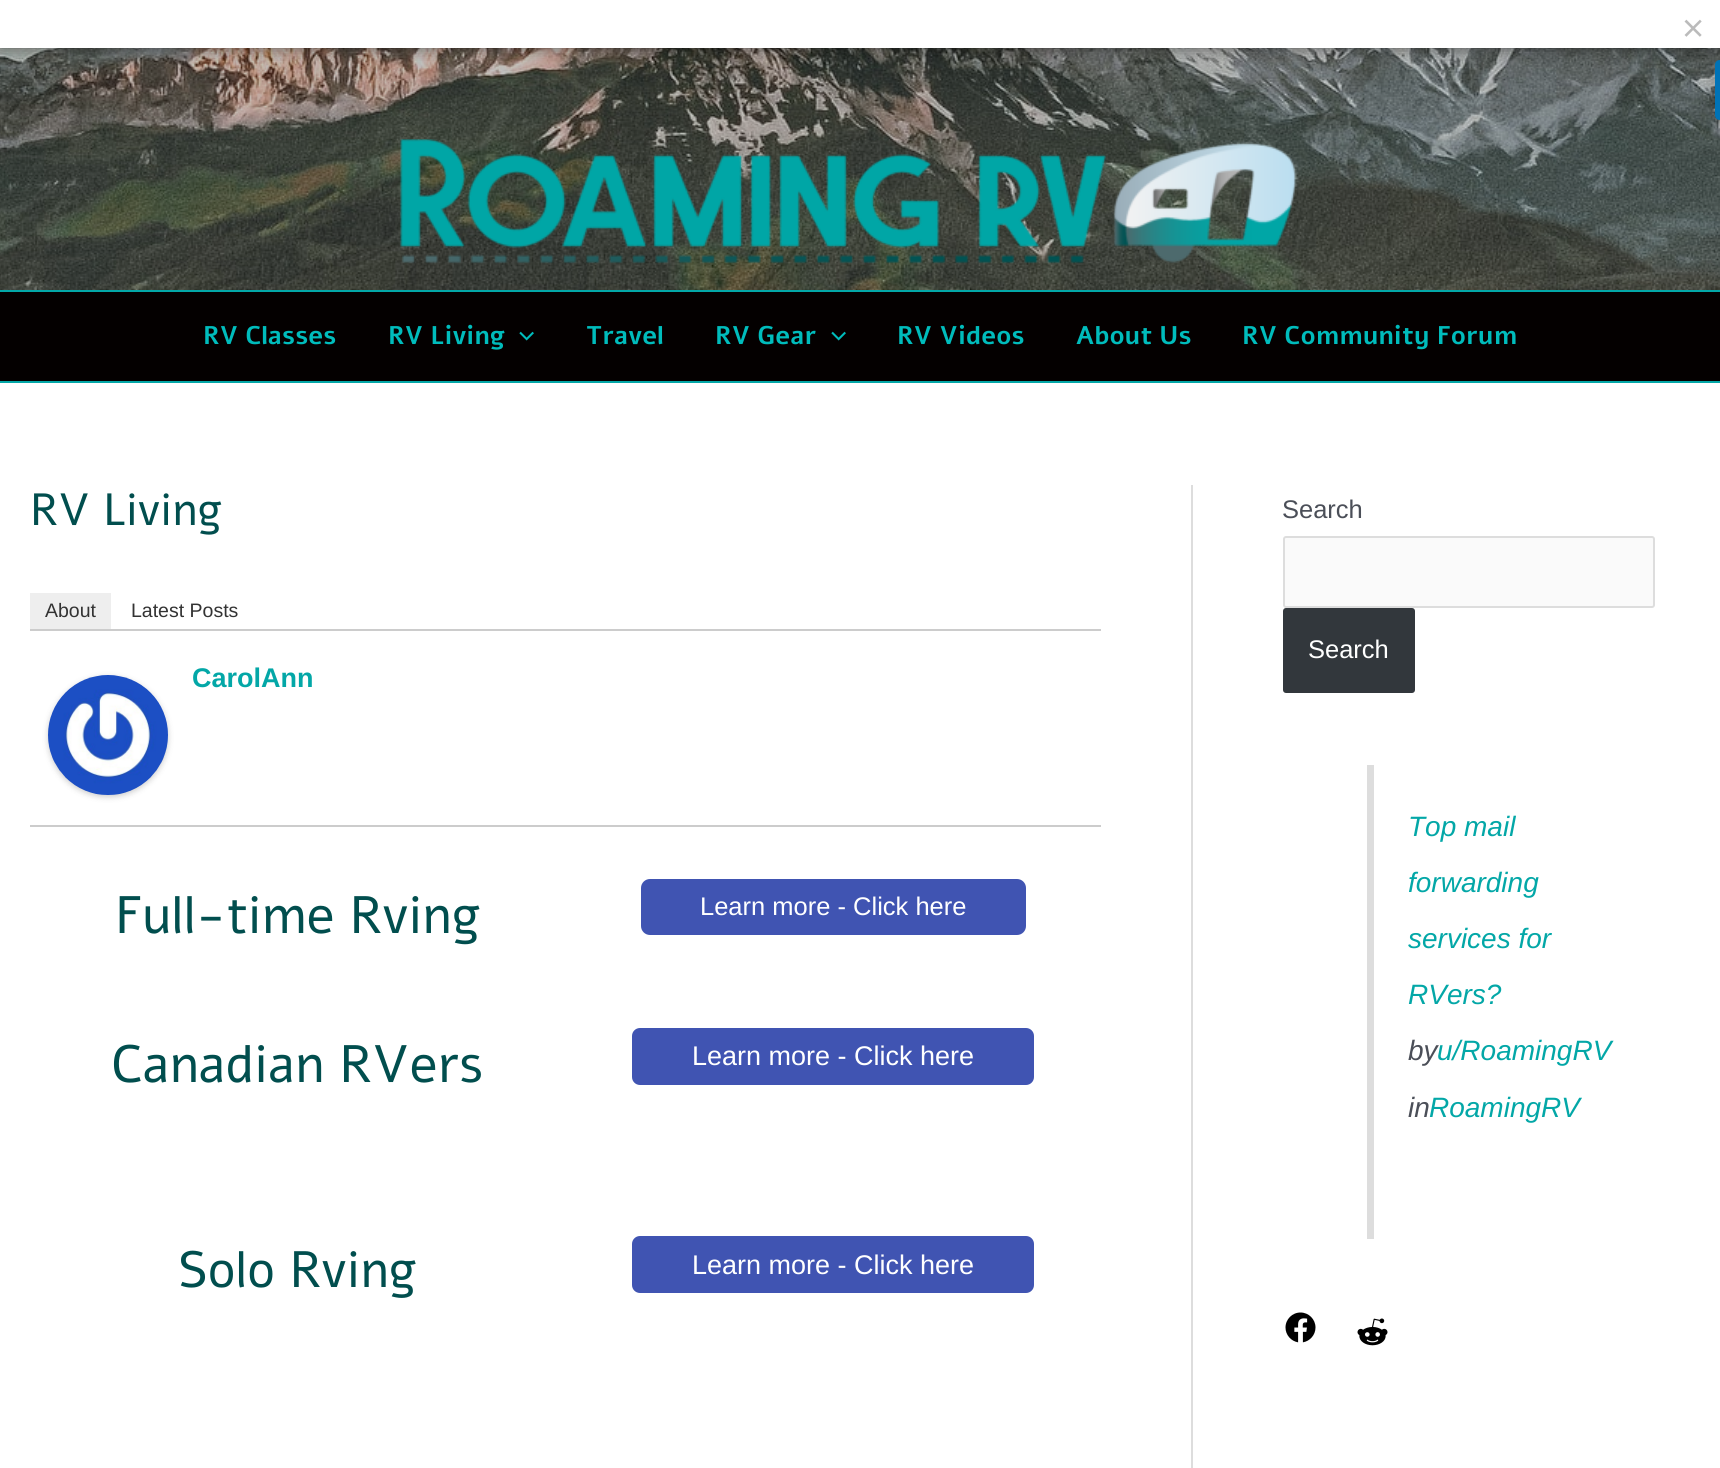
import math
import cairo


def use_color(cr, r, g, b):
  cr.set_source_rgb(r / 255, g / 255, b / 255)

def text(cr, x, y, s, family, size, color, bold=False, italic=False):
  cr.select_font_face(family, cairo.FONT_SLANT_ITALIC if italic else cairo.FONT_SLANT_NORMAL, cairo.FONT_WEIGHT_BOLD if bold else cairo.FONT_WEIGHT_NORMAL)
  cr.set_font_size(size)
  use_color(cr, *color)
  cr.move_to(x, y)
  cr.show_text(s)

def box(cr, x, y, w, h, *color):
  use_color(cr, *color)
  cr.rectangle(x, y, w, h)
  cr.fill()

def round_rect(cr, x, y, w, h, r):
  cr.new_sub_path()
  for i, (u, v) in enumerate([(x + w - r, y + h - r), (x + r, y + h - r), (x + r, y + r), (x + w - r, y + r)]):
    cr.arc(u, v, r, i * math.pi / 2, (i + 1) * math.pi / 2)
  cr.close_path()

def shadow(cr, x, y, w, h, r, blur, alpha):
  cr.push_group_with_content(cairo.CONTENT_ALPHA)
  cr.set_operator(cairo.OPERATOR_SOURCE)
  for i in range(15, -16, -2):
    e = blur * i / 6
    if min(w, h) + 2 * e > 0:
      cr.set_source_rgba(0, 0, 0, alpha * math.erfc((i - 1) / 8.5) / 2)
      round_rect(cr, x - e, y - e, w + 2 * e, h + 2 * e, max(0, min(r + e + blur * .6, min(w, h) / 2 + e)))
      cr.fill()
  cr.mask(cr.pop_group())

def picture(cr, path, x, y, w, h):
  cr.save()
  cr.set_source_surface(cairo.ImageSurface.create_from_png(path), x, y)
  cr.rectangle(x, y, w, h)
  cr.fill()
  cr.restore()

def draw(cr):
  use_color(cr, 255, 255, 255)
  cr.paint()
  picture(cr, "img_01.png", 0, 48, 1720, 242)
  cr.save()
  cr.rectangle(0, 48, 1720, 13)
  cr.clip()
  use_color(cr, 0, 0, 0)
  shadow(cr, 0, 0, 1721, 48, 0, 7.5, 0.5)
  cr.restore()
  use_color(cr, 0, 0, 0)
  shadow(cr, 1715, 66, 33, 60, 5, 7.5, 0.2)
  use_color(cr, 0, 115, 183)
  cr.new_path()
  cr.move_to(1720, 60)
  cr.line_to(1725, 60)
  cr.line_to(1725, 120)
  cr.line_to(1720, 120)
  cr.curve_to(1717, 120, 1715, 118, 1715, 115)
  cr.line_to(1715, 65)
  cr.curve_to(1715, 62, 1717, 60, 1720, 60)
  cr.close_path()
  cr.fill()
  box(cr, 0, 290, 1720, 2, 3, 167, 167)
  picture(cr, "img_02.png", 400, 139, 897, 125)
  box(cr, 0, 292, 1720, 89, 4, 0, 0)
  box(cr, 0, 381, 1720, 2, 3, 167, 167)
  picture(cr, "img_03.png", 519, 331, 15, 10)
  picture(cr, "img_03.png", 831, 331, 15, 10)
  box(cr, 1191, 485, 2, 983, 221, 221, 221)
  box(cr, 30, 629, 1071, 2, 204, 204, 204)
  box(cr, 30, 593, 81, 36, 238, 238, 238)
  box(cr, 30, 825, 1071, 2, 204, 204, 204)
  use_color(cr, 0, 0, 0)
  shadow(cr, 48, 677, 120, 120, 60, 3, 0.2)
  picture(cr, "img_04.png", 48, 675, 120, 120)
  use_color(cr, 64, 84, 178)
  round_rect(cr, 641, 879, 385, 56, 9)
  cr.fill()
  round_rect(cr, 632, 1028, 402, 57, 8)
  cr.fill()
  round_rect(cr, 632, 1236, 402, 57, 8)
  cr.fill()
  use_color(cr, 250, 250, 250)
  round_rect(cr, 1284, 537, 370, 70, 2)
  cr.fill_preserve()
  use_color(cr, 221, 221, 221)
  cr.stroke()
  use_color(cr, 50, 55, 60)
  round_rect(cr, 1283, 608, 132, 85, 3)
  cr.fill()
  box(cr, 1367, 765, 7, 474, 221, 221, 221)
  picture(cr, "img_05.png", 1285, 1312, 31, 31)
  picture(cr, "img_06.png", 1357, 1318, 31, 28)
  text(cr, 1682, 42, "×", "Open Sans", 39, (187, 187, 187))
  text(cr, 203, 344, "RV Classes", "Alef", 25.5, (0, 188, 188), bold=True)
  text(cr, 388, 344, "RV Living", "Alef", 25.5, (0, 188, 188), bold=True)
  text(cr, 586, 344, "Travel", "Alef", 25.5, (0, 188, 188), bold=True)
  text(cr, 715, 344, "RV Gear", "Alef", 25.5, (0, 188, 188), bold=True)
  text(cr, 897, 344, "RV Videos", "Alef", 25.5, (0, 188, 188), bold=True)
  text(cr, 1076, 344, "About Us", "Alef", 25.5, (0, 188, 188), bold=True)
  text(cr, 1242, 344, "RV Community Forum", "Alef", 25.5, (0, 188, 188), bold=True)
  text(cr, 30, 525, "RV Living", "Alef", 45, (1, 78, 78))
  text(cr, 45, 617, "About", "Liberation Sans", 19.5, (51, 51, 51))
  text(cr, 131, 617, "Latest Posts", "Liberation Sans", 19.5, (51, 51, 51))
  text(cr, 192, 687, "CarolAnn", "Liberation Sans", 27, (3, 167, 167), bold=True)
  text(cr, 115, 933, "Full-time Rving", "Alef", 52.5, (1, 78, 78))
  text(cr, 700, 915, "Learn more - Click here", "Liberation Sans", 25.5, (255, 255, 255))
  text(cr, 111, 1082, "Canadian RVers", "Alef", 52.5, (1, 78, 78))
  text(cr, 692, 1065, "Learn more - Click here", "Liberation Sans", 27, (255, 255, 255))
  text(cr, 178, 1287, "Solo Rving", "Alef", 51, (1, 78, 78))
  text(cr, 692, 1274, "Learn more - Click here", "Liberation Sans", 27, (255, 255, 255))
  text(cr, 1282, 518, "Search", "Liberation Sans", 25.5, (75, 79, 88))
  text(cr, 1308, 658, "Search", "Liberation Sans", 25.5, (255, 255, 255))
  text(cr, 1408, 836, "Top mail", "Liberation Sans", 28, (3, 167, 167), italic=True)
  text(cr, 1408, 892, "forwarding", "Liberation Sans", 28, (3, 167, 167), italic=True)
  text(cr, 1408, 948, "services for", "Liberation Sans", 28, (3, 167, 167), italic=True)
  text(cr, 1408, 1004, "RVers?", "Liberation Sans", 28, (3, 167, 167), italic=True)
  text(cr, 1408, 1060, "by", "Liberation Sans", 28, (75, 79, 88), italic=True)
  text(cr, 1437, 1060, "u/RoamingRV", "Liberation Sans", 28, (3, 167, 167), italic=True)
  text(cr, 1408, 1117, "in", "Liberation Sans", 28, (75, 79, 88), italic=True)
  text(cr, 1429, 1117, "RoamingRV", "Liberation Sans", 28, (3, 167, 167), italic=True)


surface = cairo.ImageSurface(cairo.FORMAT_RGB24, 1720, 1468)
cr = cairo.Context(surface)
options = cairo.FontOptions()
options.set_hint_metrics(cairo.HINT_METRICS_OFF)
options.set_hint_style(cairo.HINT_STYLE_NONE)
cr.set_font_options(options)
cr.set_miter_limit(4)
draw(cr)
surface.write_to_png("out.png")
